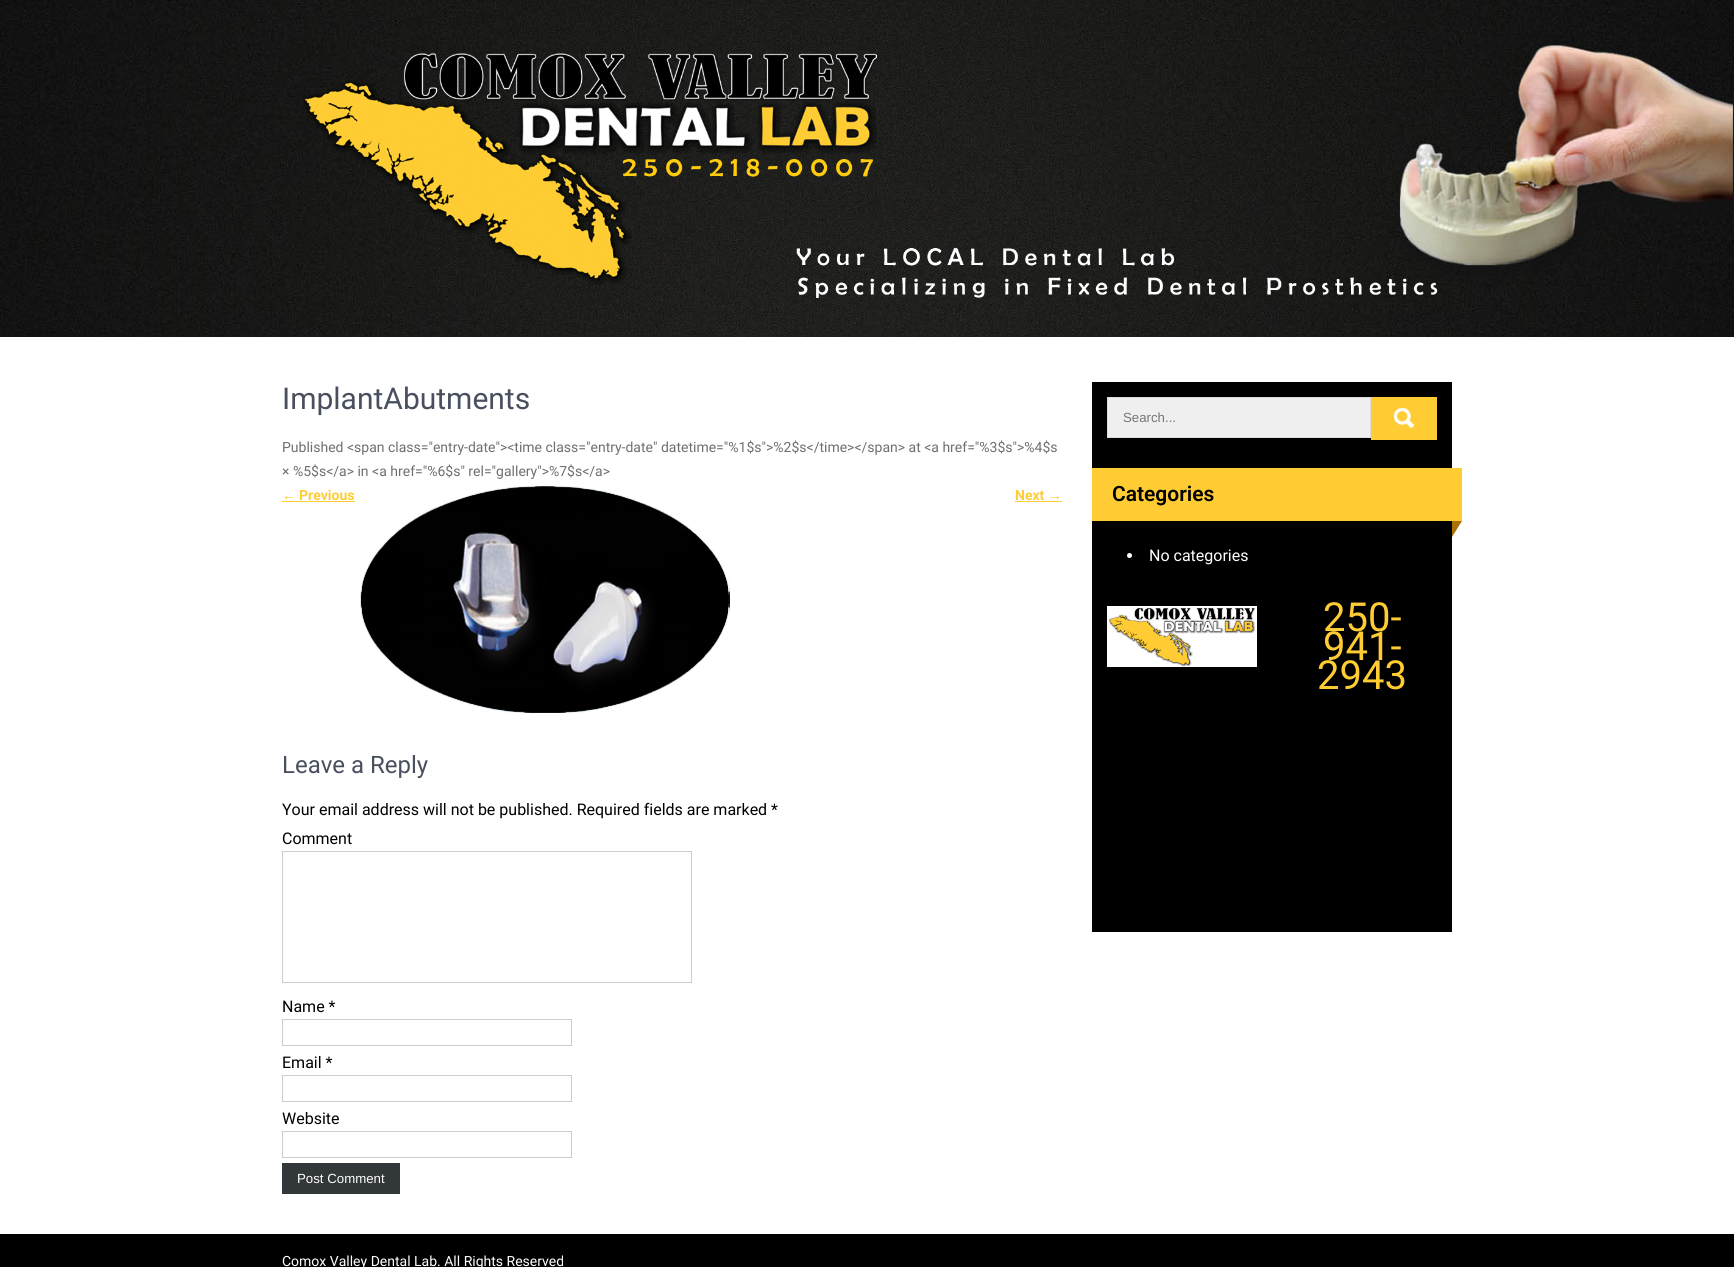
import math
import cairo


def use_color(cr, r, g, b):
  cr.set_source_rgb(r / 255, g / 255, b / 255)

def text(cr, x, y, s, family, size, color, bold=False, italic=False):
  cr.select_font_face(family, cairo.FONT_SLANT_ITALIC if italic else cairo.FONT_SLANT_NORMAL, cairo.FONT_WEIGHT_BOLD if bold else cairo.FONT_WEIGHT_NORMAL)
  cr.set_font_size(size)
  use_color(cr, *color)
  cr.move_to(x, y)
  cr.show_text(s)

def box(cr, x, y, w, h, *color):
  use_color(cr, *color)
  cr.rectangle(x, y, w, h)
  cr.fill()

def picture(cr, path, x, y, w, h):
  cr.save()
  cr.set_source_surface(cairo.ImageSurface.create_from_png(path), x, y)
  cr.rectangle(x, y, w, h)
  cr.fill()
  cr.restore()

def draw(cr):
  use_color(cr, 255, 255, 255)
  cr.paint()
  picture(cr, "img_01.png", 0, 0, 1734, 337)
  picture(cr, "img_02.png", 303, 53, 1135, 245)
  box(cr, 282, 501, 73, 1, 255, 204, 51)
  box(cr, 1015, 501, 47, 1, 255, 204, 51)
  picture(cr, "img_03.png", 360, 486, 370, 227)
  cr.rectangle(282.5, 851.5, 409, 131)
  use_color(cr, 204, 204, 204)
  cr.set_line_width(1)
  cr.stroke()
  cr.rectangle(282.5, 1019.5, 289, 26)
  cr.stroke()
  cr.rectangle(282.5, 1075.5, 289, 26)
  cr.stroke()
  cr.rectangle(282.5, 1131.5, 289, 26)
  cr.stroke()
  box(cr, 282, 1163, 118, 31, 50, 55, 58)
  box(cr, 1092, 382, 360, 550, 0, 0, 0)
  use_color(cr, 240, 239, 239)
  cr.rectangle(1107.5, 397.5, 263, 40)
  cr.fill_preserve()
  use_color(cr, 221, 221, 221)
  cr.stroke()
  box(cr, 1371, 397, 66, 43, 255, 204, 51)
  picture(cr, "img_04.png", 1394, 408, 20, 20)
  box(cr, 1092, 468, 370, 53, 255, 204, 51)
  use_color(cr, 170, 114, 5)
  cr.new_path()
  cr.move_to(1452, 537)
  cr.line_to(1452, 521)
  cr.line_to(1462, 521)
  cr.close_path()
  cr.fill()
  use_color(cr, 255, 255, 255)
  cr.arc(1129.5, 555.5, 2.5, 0, 2 * math.pi)
  cr.fill()
  picture(cr, "img_05.png", 1107, 606, 150, 61)
  box(cr, 0, 1234, 1734, 33, 0, 0, 0)
  text(cr, 282, 409, "ImplantAbutments", "Roboto", 30, (72, 79, 94))
  text(cr, 282, 452, "Published <span class=\"entry-date\"><time class=\"entry-date\" datetime=\"%1$s\">%2$s</time></span> at <a href=\"%3$s\">%4$s", "Roboto", 14, (111, 111, 111))
  text(cr, 282, 476, "× %5$s</a> in <a href=\"%6$s\" rel=\"gallery\">%7$s</a>", "Roboto", 14, (111, 111, 111))
  text(cr, 282, 500, "←", "Liberation Sans", 14, (255, 204, 51), bold=True)
  text(cr, 299, 500, "Previous", "Roboto", 14, (255, 204, 51), bold=True)
  text(cr, 1015, 500, "Next", "Roboto", 14, (255, 204, 51), bold=True)
  text(cr, 1048, 500, "→", "Liberation Sans", 14, (255, 204, 51), bold=True)
  text(cr, 282, 773, "Leave a Reply", "Roboto", 24, (72, 79, 94))
  text(cr, 282, 815, "Your email address will not be published. Required fields are marked *", "Roboto", 16, (0, 0, 0))
  text(cr, 282, 844, "Comment", "Roboto", 16, (0, 0, 0))
  text(cr, 282, 1012, "Name *", "Roboto", 16, (0, 0, 0))
  text(cr, 282, 1068, "Email *", "Roboto", 16, (0, 0, 0))
  text(cr, 282, 1124, "Website", "Roboto", 16, (0, 0, 0))
  text(cr, 297, 1183, "Post Comment", "Liberation Sans", 13.25, (255, 255, 255))
  text(cr, 1123, 422, "Search...", "Liberation Sans", 13.25, (117, 117, 117))
  text(cr, 1112, 501, "Categories", "Roboto SemiBold", 21, (0, 0, 0))
  text(cr, 1149, 561, "No categories", "Roboto", 16, (255, 255, 255))
  text(cr, 1323, 631, "250-", "Roboto", 40, (255, 204, 51))
  text(cr, 1323, 660, "941-", "Roboto", 40, (255, 204, 51))
  text(cr, 1317, 689, "2943", "Roboto", 40, (255, 204, 51))
  text(cr, 282, 1266, "Comox Valley Dental Lab. All Rights Reserved", "Roboto", 14, (255, 255, 255))


surface = cairo.ImageSurface(cairo.FORMAT_RGB24, 1734, 1267)
cr = cairo.Context(surface)
options = cairo.FontOptions()
options.set_hint_metrics(cairo.HINT_METRICS_OFF)
options.set_hint_style(cairo.HINT_STYLE_NONE)
cr.set_font_options(options)
cr.set_miter_limit(4)
draw(cr)
surface.write_to_png("out.png")
